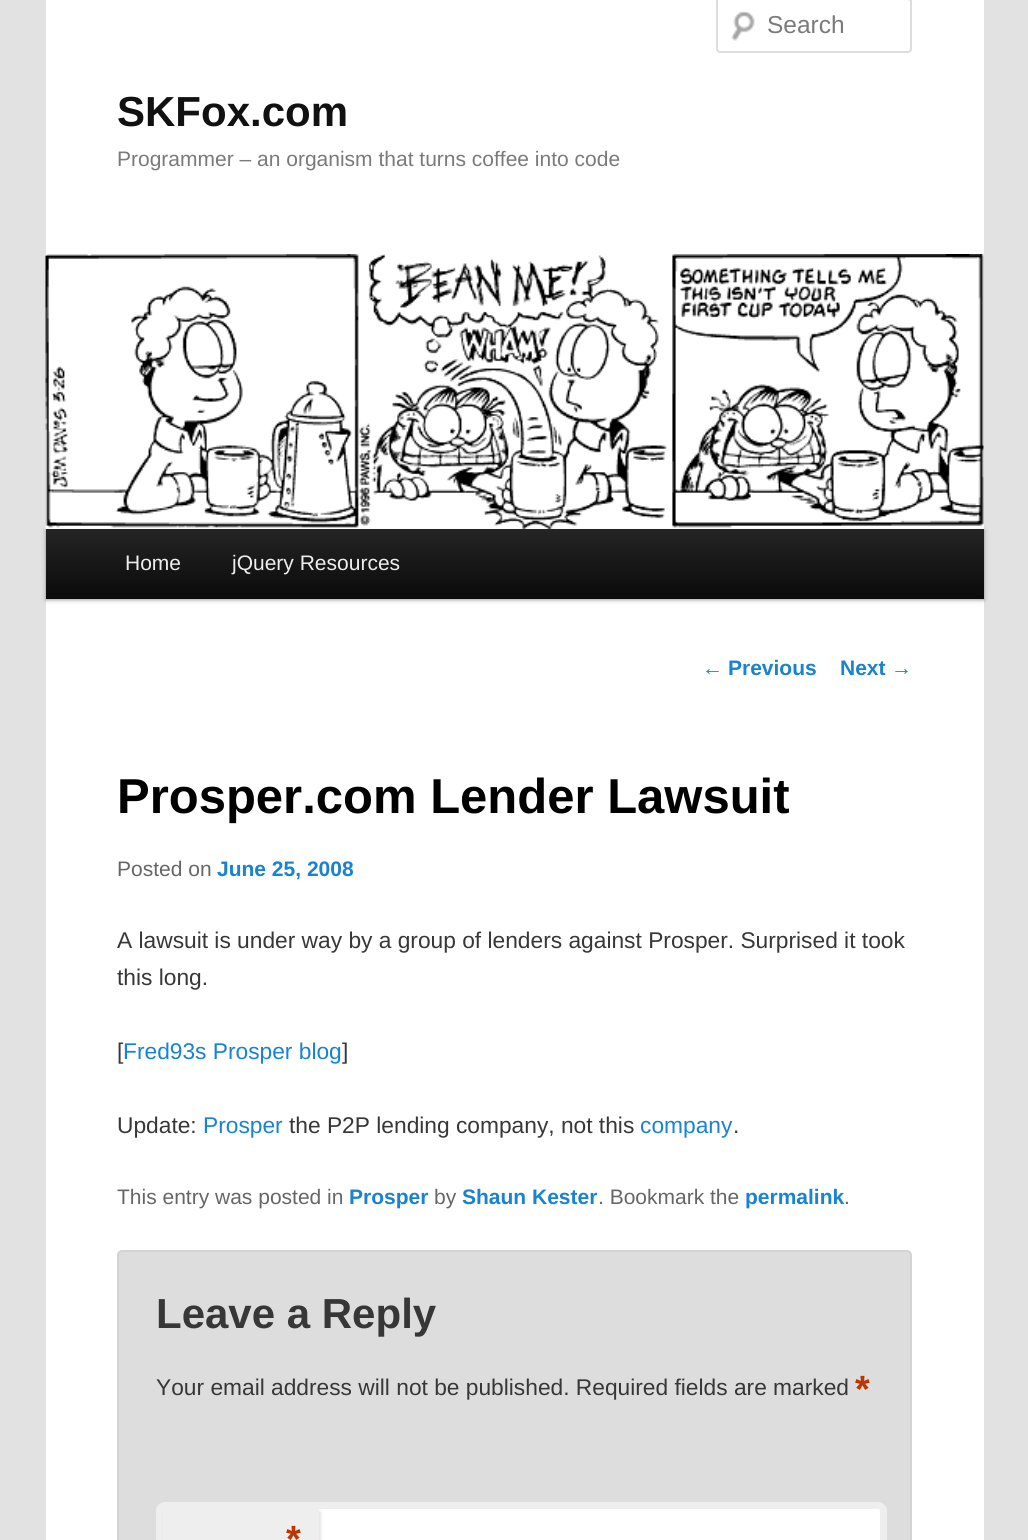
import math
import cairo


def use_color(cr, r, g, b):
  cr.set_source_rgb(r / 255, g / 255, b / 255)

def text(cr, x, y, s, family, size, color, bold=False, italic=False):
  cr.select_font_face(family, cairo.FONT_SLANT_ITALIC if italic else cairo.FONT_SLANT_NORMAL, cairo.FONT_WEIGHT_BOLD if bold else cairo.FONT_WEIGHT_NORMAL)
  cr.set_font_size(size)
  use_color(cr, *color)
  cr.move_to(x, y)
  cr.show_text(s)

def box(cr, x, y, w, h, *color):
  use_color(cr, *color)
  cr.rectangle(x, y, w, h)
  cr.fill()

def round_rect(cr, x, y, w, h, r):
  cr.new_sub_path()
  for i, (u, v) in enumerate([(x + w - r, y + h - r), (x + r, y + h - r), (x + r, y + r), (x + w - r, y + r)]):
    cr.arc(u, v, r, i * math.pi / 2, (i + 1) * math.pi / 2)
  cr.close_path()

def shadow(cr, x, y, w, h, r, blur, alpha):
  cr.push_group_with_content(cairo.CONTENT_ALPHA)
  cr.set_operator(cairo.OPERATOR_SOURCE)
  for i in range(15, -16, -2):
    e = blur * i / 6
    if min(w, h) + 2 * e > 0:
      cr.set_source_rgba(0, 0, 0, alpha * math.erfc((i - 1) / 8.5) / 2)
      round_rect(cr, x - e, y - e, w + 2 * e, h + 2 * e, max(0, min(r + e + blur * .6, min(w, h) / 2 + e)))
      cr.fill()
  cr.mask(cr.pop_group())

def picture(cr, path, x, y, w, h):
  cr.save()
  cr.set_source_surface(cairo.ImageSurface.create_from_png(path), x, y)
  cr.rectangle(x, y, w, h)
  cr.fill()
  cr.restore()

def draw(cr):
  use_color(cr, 226, 226, 226)
  cr.paint()
  box(cr, 46, 0, 938, 1540, 255, 255, 255)
  picture(cr, "img_01.png", 731, 11, 24, 30)
  use_color(cr, 230, 230, 230)
  cr.new_path()
  cr.move_to(719, 0)
  cr.line_to(908, 0)
  cr.line_to(910, 1)
  cr.line_to(910, 2)
  cr.curve_to(910, 0, 910, -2, 908, -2)
  cr.line_to(720, -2)
  cr.curve_to(718, -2, 718, 0, 718, 2)
  cr.curve_to(718, 1, 718, 0, 719, 0)
  cr.close_path()
  cr.fill()
  round_rect(cr, 717, -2, 194, 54, 3)
  use_color(cr, 221, 221, 221)
  cr.stroke()
  use_color(cr, 0, 0, 0)
  shadow(cr, 46, 530, 938, 70, 0, 2, 0.4)
  picture(cr, "img_02.png", 45, 254, 939, 275)
  gradient = cairo.LinearGradient(515, 528, 515, 599)
  gradient.add_color_stop_rgba(0, 0.145, 0.145, 0.145, 1)
  gradient.add_color_stop_rgba(1, 0.039, 0.039, 0.039, 1)
  cr.set_source(gradient)
  cr.rectangle(46, 529, 938, 70)
  cr.fill()
  use_color(cr, 221, 221, 221)
  round_rect(cr, 118, 1251, 793, 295, 4)
  cr.fill_preserve()
  use_color(cr, 211, 211, 211)
  cr.stroke()
  use_color(cr, 255, 255, 255)
  round_rect(cr, 159.5, 1505.5, 724, 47, 5.5)
  cr.fill_preserve()
  use_color(cr, 238, 238, 238)
  cr.set_line_width(7)
  cr.stroke()
  use_color(cr, 204, 204, 204)
  shadow(cr, 165, 1512, 155, 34, 0, 2, 0.8)
  box(cr, 163, 1509, 156, 31, 238, 238, 238)
  text(cr, 767, 33, "Search", "Liberation Sans", 24.5, (122, 122, 122))
  text(cr, 117, 126, "SKFox.com", "Liberation Sans", 42, (17, 17, 17), bold=True)
  text(cr, 117, 166, "Programmer – an organism that turns coffee into code", "Liberation Sans", 21, (122, 122, 122))
  text(cr, 125, 570, "Home", "Liberation Sans", 21, (238, 238, 238))
  text(cr, 232, 570, "jQuery Resources", "Liberation Sans", 21, (238, 238, 238))
  text(cr, 702, 675, "←", "Liberation Sans", 21, (25, 130, 209))
  text(cr, 728, 675, "Previous", "Liberation Sans", 21, (25, 130, 209), bold=True)
  text(cr, 840, 675, "Next", "Liberation Sans", 21, (25, 130, 209), bold=True)
  text(cr, 891, 675, "→", "Liberation Sans", 21, (25, 130, 209))
  text(cr, 117, 813, "Prosper.com Lender Lawsuit", "Liberation Sans", 49, (0, 0, 0), bold=True)
  text(cr, 117, 876, "Posted on", "Liberation Sans", 21, (102, 102, 102))
  text(cr, 217, 876, "June 25, 2008", "Liberation Sans", 21, (25, 130, 209), bold=True)
  text(cr, 117, 948, "A lawsuit is under way by a group of lenders against Prosper. Surprised it took", "Liberation Sans", 22.75, (55, 55, 55))
  text(cr, 117, 985, "this long.", "Liberation Sans", 22.75, (55, 55, 55))
  text(cr, 117, 1059, "[", "Liberation Sans", 22.75, (55, 55, 55))
  text(cr, 123, 1059, "Fred93s Prosper blog", "Liberation Sans", 22.75, (25, 130, 209))
  text(cr, 342, 1059, "]", "Liberation Sans", 22.75, (55, 55, 55))
  text(cr, 117, 1133, "Update:", "Liberation Sans", 22.75, (55, 55, 55))
  text(cr, 203, 1133, "Prosper", "Liberation Sans", 22.75, (25, 130, 209))
  text(cr, 289, 1133, "the P2P lending company, not this", "Liberation Sans", 22.75, (55, 55, 55))
  text(cr, 640, 1133, "company", "Liberation Sans", 22.75, (25, 130, 209))
  text(cr, 733, 1133, ".", "Liberation Sans", 22.75, (55, 55, 55))
  text(cr, 117, 1204, "This entry was posted in", "Liberation Sans", 21, (102, 102, 102))
  text(cr, 349, 1204, "Prosper", "Liberation Sans", 21, (25, 130, 209), bold=True)
  text(cr, 434, 1204, "by", "Liberation Sans", 21, (102, 102, 102))
  text(cr, 462, 1204, "Shaun Kester", "Liberation Sans", 21, (25, 130, 209), bold=True)
  text(cr, 598, 1204, ". Bookmark the", "Liberation Sans", 21, (102, 102, 102))
  text(cr, 745, 1204, "permalink", "Liberation Sans", 21, (25, 130, 209), bold=True)
  text(cr, 844, 1204, ".", "Liberation Sans", 21, (102, 102, 102))
  text(cr, 156, 1328, "Leave a Reply", "Liberation Sans", 42, (55, 55, 55), bold=True)
  text(cr, 156, 1395, "Your email address will not be published. Required fields are marked", "Liberation Sans", 22.75, (55, 55, 55))
  text(cr, 855, 1402, "*", "Liberation Sans", 38, (189, 53, 0), bold=True)
  text(cr, 286, 1552, "*", "Liberation Sans", 38, (189, 53, 0), bold=True)


surface = cairo.ImageSurface(cairo.FORMAT_RGB24, 1028, 1540)
cr = cairo.Context(surface)
options = cairo.FontOptions()
options.set_hint_metrics(cairo.HINT_METRICS_OFF)
options.set_hint_style(cairo.HINT_STYLE_NONE)
cr.set_font_options(options)
cr.set_miter_limit(4)
draw(cr)
surface.write_to_png("out.png")
